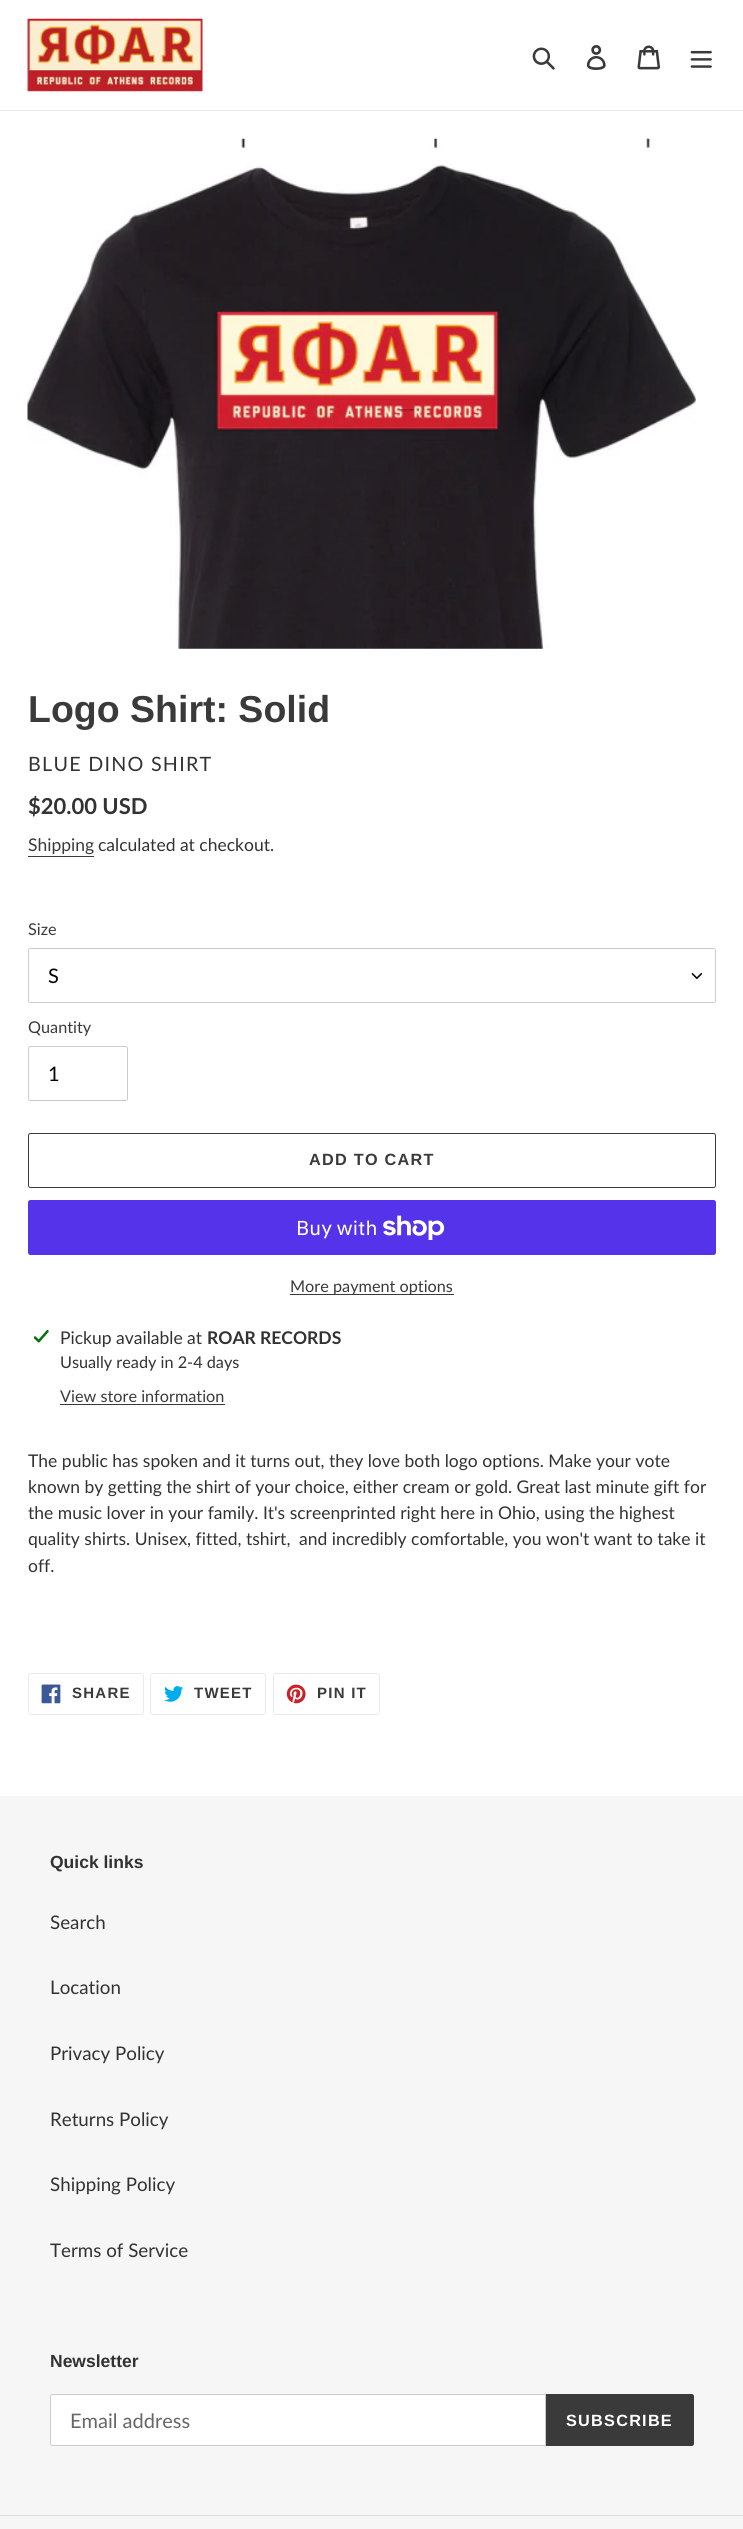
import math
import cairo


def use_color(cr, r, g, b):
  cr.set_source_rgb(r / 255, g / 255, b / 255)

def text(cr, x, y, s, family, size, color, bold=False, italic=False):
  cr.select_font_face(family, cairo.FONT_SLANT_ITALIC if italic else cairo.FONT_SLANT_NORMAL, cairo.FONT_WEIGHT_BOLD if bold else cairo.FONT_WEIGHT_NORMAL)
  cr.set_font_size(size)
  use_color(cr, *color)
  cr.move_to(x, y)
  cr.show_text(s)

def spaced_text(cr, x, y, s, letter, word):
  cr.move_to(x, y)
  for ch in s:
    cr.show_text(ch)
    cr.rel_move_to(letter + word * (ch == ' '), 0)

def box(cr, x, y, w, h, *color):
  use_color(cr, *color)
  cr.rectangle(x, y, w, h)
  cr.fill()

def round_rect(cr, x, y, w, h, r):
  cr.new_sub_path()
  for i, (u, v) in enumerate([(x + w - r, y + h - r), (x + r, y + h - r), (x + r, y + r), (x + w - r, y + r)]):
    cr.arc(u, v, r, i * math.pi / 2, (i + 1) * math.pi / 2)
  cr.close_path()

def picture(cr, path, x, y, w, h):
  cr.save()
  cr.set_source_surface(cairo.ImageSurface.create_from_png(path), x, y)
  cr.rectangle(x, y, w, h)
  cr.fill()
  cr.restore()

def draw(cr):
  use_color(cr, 255, 255, 255)
  cr.paint()
  box(cr, 0, 110, 743, 1, 235, 235, 235)
  picture(cr, "img_01.png", 27, 18, 176, 74)
  picture(cr, "img_02.png", 532, 47, 23, 23)
  picture(cr, "img_03.png", 586, 45, 20, 25)
  picture(cr, "img_04.png", 637, 45, 23, 25)
  picture(cr, "img_05.png", 690, 50, 22, 18)
  picture(cr, "img_06.png", 27, 138, 669, 511)
  box(cr, 28, 856, 66, 1, 58, 58, 58)
  picture(cr, "img_07.png", 691, 973, 12, 6)
  round_rect(cr, 28.5, 948.5, 687, 54, 2)
  use_color(cr, 204, 204, 204)
  cr.set_line_width(1)
  cr.stroke()
  round_rect(cr, 28.5, 1046.5, 99, 54, 2)
  cr.stroke()
  round_rect(cr, 28.5, 1133.5, 687, 54, 2)
  use_color(cr, 58, 58, 58)
  cr.stroke()
  use_color(cr, 84, 51, 235)
  round_rect(cr, 28, 1200, 688, 55, 2.5)
  cr.fill()
  picture(cr, "img_08.png", 383, 1215, 62, 25)
  box(cr, 290, 1294, 164, 1, 58, 58, 58)
  picture(cr, "img_09.png", 34, 1330, 15, 13)
  box(cr, 60, 1404, 165, 1, 58, 58, 58)
  round_rect(cr, 28.5, 1673.5, 115, 41, 2)
  use_color(cr, 235, 235, 235)
  cr.stroke()
  picture(cr, "img_10.png", 41, 1684, 20, 20)
  round_rect(cr, 150.5, 1673.5, 115, 41, 2)
  cr.stroke()
  picture(cr, "img_11.png", 164, 1686, 20, 16)
  round_rect(cr, 273.5, 1673.5, 106, 41, 2)
  cr.stroke()
  picture(cr, "img_12.png", 286, 1684, 20, 20)
  box(cr, 0, 1796, 743, 733, 246, 246, 246)
  use_color(cr, 255, 255, 255)
  cr.new_path()
  cr.move_to(52.5, 2394.5)
  cr.line_to(545.5, 2394.5)
  cr.line_to(545.5, 2445.5)
  cr.line_to(52.5, 2445.5)
  cr.curve_to(51.5, 2445.5, 50.5, 2444.5, 50.5, 2443.5)
  cr.line_to(50.5, 2396.5)
  cr.curve_to(50.5, 2395.5, 51.5, 2394.5, 52.5, 2394.5)
  cr.close_path()
  cr.fill_preserve()
  use_color(cr, 204, 204, 204)
  cr.stroke()
  use_color(cr, 58, 58, 58)
  cr.new_path()
  cr.move_to(546, 2394)
  cr.line_to(691.5, 2394)
  cr.curve_to(693, 2394, 694, 2395, 694, 2396.5)
  cr.line_to(694, 2443.5)
  cr.curve_to(694, 2445, 693, 2446, 691.5, 2446)
  cr.line_to(546, 2446)
  cr.close_path()
  cr.fill()
  box(cr, 0, 2515, 743, 1, 221, 221, 221)
  text(cr, 28, 722, "Logo Shirt: Solid", "Liberation Sans", 37.5, (58, 58, 58), bold=True)
  cr.select_font_face("Lato")
  cr.set_font_size(19.75)
  use_color(cr, 51, 50, 50)
  spaced_text(cr, 28, 771, "BLUE DINO SHIRT", 1.25, 0)
  text(cr, 28, 814, "$20.00 USD", "Lato", 22, (51, 50, 50), bold=True)
  text(cr, 28, 851, "Shipping", "Lato", 17.5, (58, 58, 58))
  text(cr, 98, 851, "calculated at checkout.", "Lato", 17.5, (51, 50, 50))
  text(cr, 28, 935, "Size", "Lato", 16.25, (58, 58, 58))
  text(cr, 48, 983, "S", "Lato", 20, (0, 0, 0))
  text(cr, 28, 1033, "Quantity", "Lato", 16.25, (58, 58, 58))
  text(cr, 48, 1081, "1", "Lato", 20, (0, 0, 0))
  cr.select_font_face("Liberation Sans", cairo.FONT_SLANT_NORMAL, cairo.FONT_WEIGHT_BOLD)
  cr.set_font_size(16.25)
  use_color(cr, 58, 58, 58)
  spaced_text(cr, 309, 1165, "ADD TO CART", 1.25, 0)
  text(cr, 296, 1235, "Buy with", "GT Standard", 20, (255, 255, 255))
  text(cr, 290, 1292, "More payment options", "Lato", 16.25, (58, 58, 58))
  text(cr, 60, 1344, "Pickup available at", "Lato", 17.5, (51, 50, 50))
  text(cr, 207, 1344, "ROAR RECORDS", "Lato", 17.5, (51, 50, 50), bold=True)
  text(cr, 60, 1368, "Usually ready in 2-4 days", "Lato", 16.25, (51, 50, 50))
  text(cr, 60, 1402, "View store information", "Lato", 16.25, (58, 58, 58))
  text(cr, 28, 1467, "The public has spoken and it turns out, they love both logo options. Make your vote", "Lato", 17.5, (51, 50, 50))
  text(cr, 28, 1493, "known by getting the shirt of your choice, either cream or gold. Great last minute gift for", "Lato", 17.5, (51, 50, 50))
  text(cr, 28, 1519, "the music lover in your family. It's screenprinted right here in Ohio, using the highest", "Lato", 17.5, (51, 50, 50))
  text(cr, 28, 1545, "quality shirts. Unisex, fitted, tshirt,", "Lato", 17.5, (51, 50, 50))
  text(cr, 299, 1545, "and incredibly comfortable, you won't want to take it", "Lato", 17.5, (51, 50, 50))
  text(cr, 28, 1572, "off.", "Lato", 17.5, (51, 50, 50))
  cr.select_font_face("Liberation Sans", cairo.FONT_SLANT_NORMAL, cairo.FONT_WEIGHT_BOLD)
  cr.set_font_size(15)
  use_color(cr, 58, 58, 58)
  spaced_text(cr, 72, 1698, "SHARE", 1.25, 0)
  spaced_text(cr, 194, 1698, "TWEET", 1.25, 0)
  spaced_text(cr, 317, 1698, "PIN IT", 1.25, 0)
  text(cr, 50, 1868, "Quick links", "Liberation Sans", 17.5, (51, 50, 50), bold=True)
  text(cr, 50, 1929, "Search", "Lato", 18.75, (51, 50, 50))
  text(cr, 50, 1994, "Location", "Lato", 18.75, (51, 50, 50))
  text(cr, 50, 2060, "Privacy Policy", "Lato", 18.75, (51, 50, 50))
  text(cr, 50, 2126, "Returns Policy", "Lato", 18.75, (51, 50, 50))
  text(cr, 50, 2191, "Shipping Policy", "Lato", 18.75, (51, 50, 50))
  text(cr, 50, 2257, "Terms of Service", "Lato", 18.75, (51, 50, 50))
  text(cr, 50, 2367, "Newsletter", "Liberation Sans", 17.5, (51, 50, 50), bold=True)
  text(cr, 70, 2428, "Email address", "Lato", 20, (102, 102, 102))
  cr.select_font_face("Liberation Sans", cairo.FONT_SLANT_NORMAL, cairo.FONT_WEIGHT_BOLD)
  cr.set_font_size(16.25)
  use_color(cr, 255, 255, 255)
  spaced_text(cr, 566, 2426, "SUBSCRIBE", 1.25, 0)


surface = cairo.ImageSurface(cairo.FORMAT_RGB24, 743, 2529)
cr = cairo.Context(surface)
options = cairo.FontOptions()
options.set_hint_metrics(cairo.HINT_METRICS_OFF)
options.set_hint_style(cairo.HINT_STYLE_NONE)
cr.set_font_options(options)
cr.set_miter_limit(4)
draw(cr)
surface.write_to_png("out.png")
